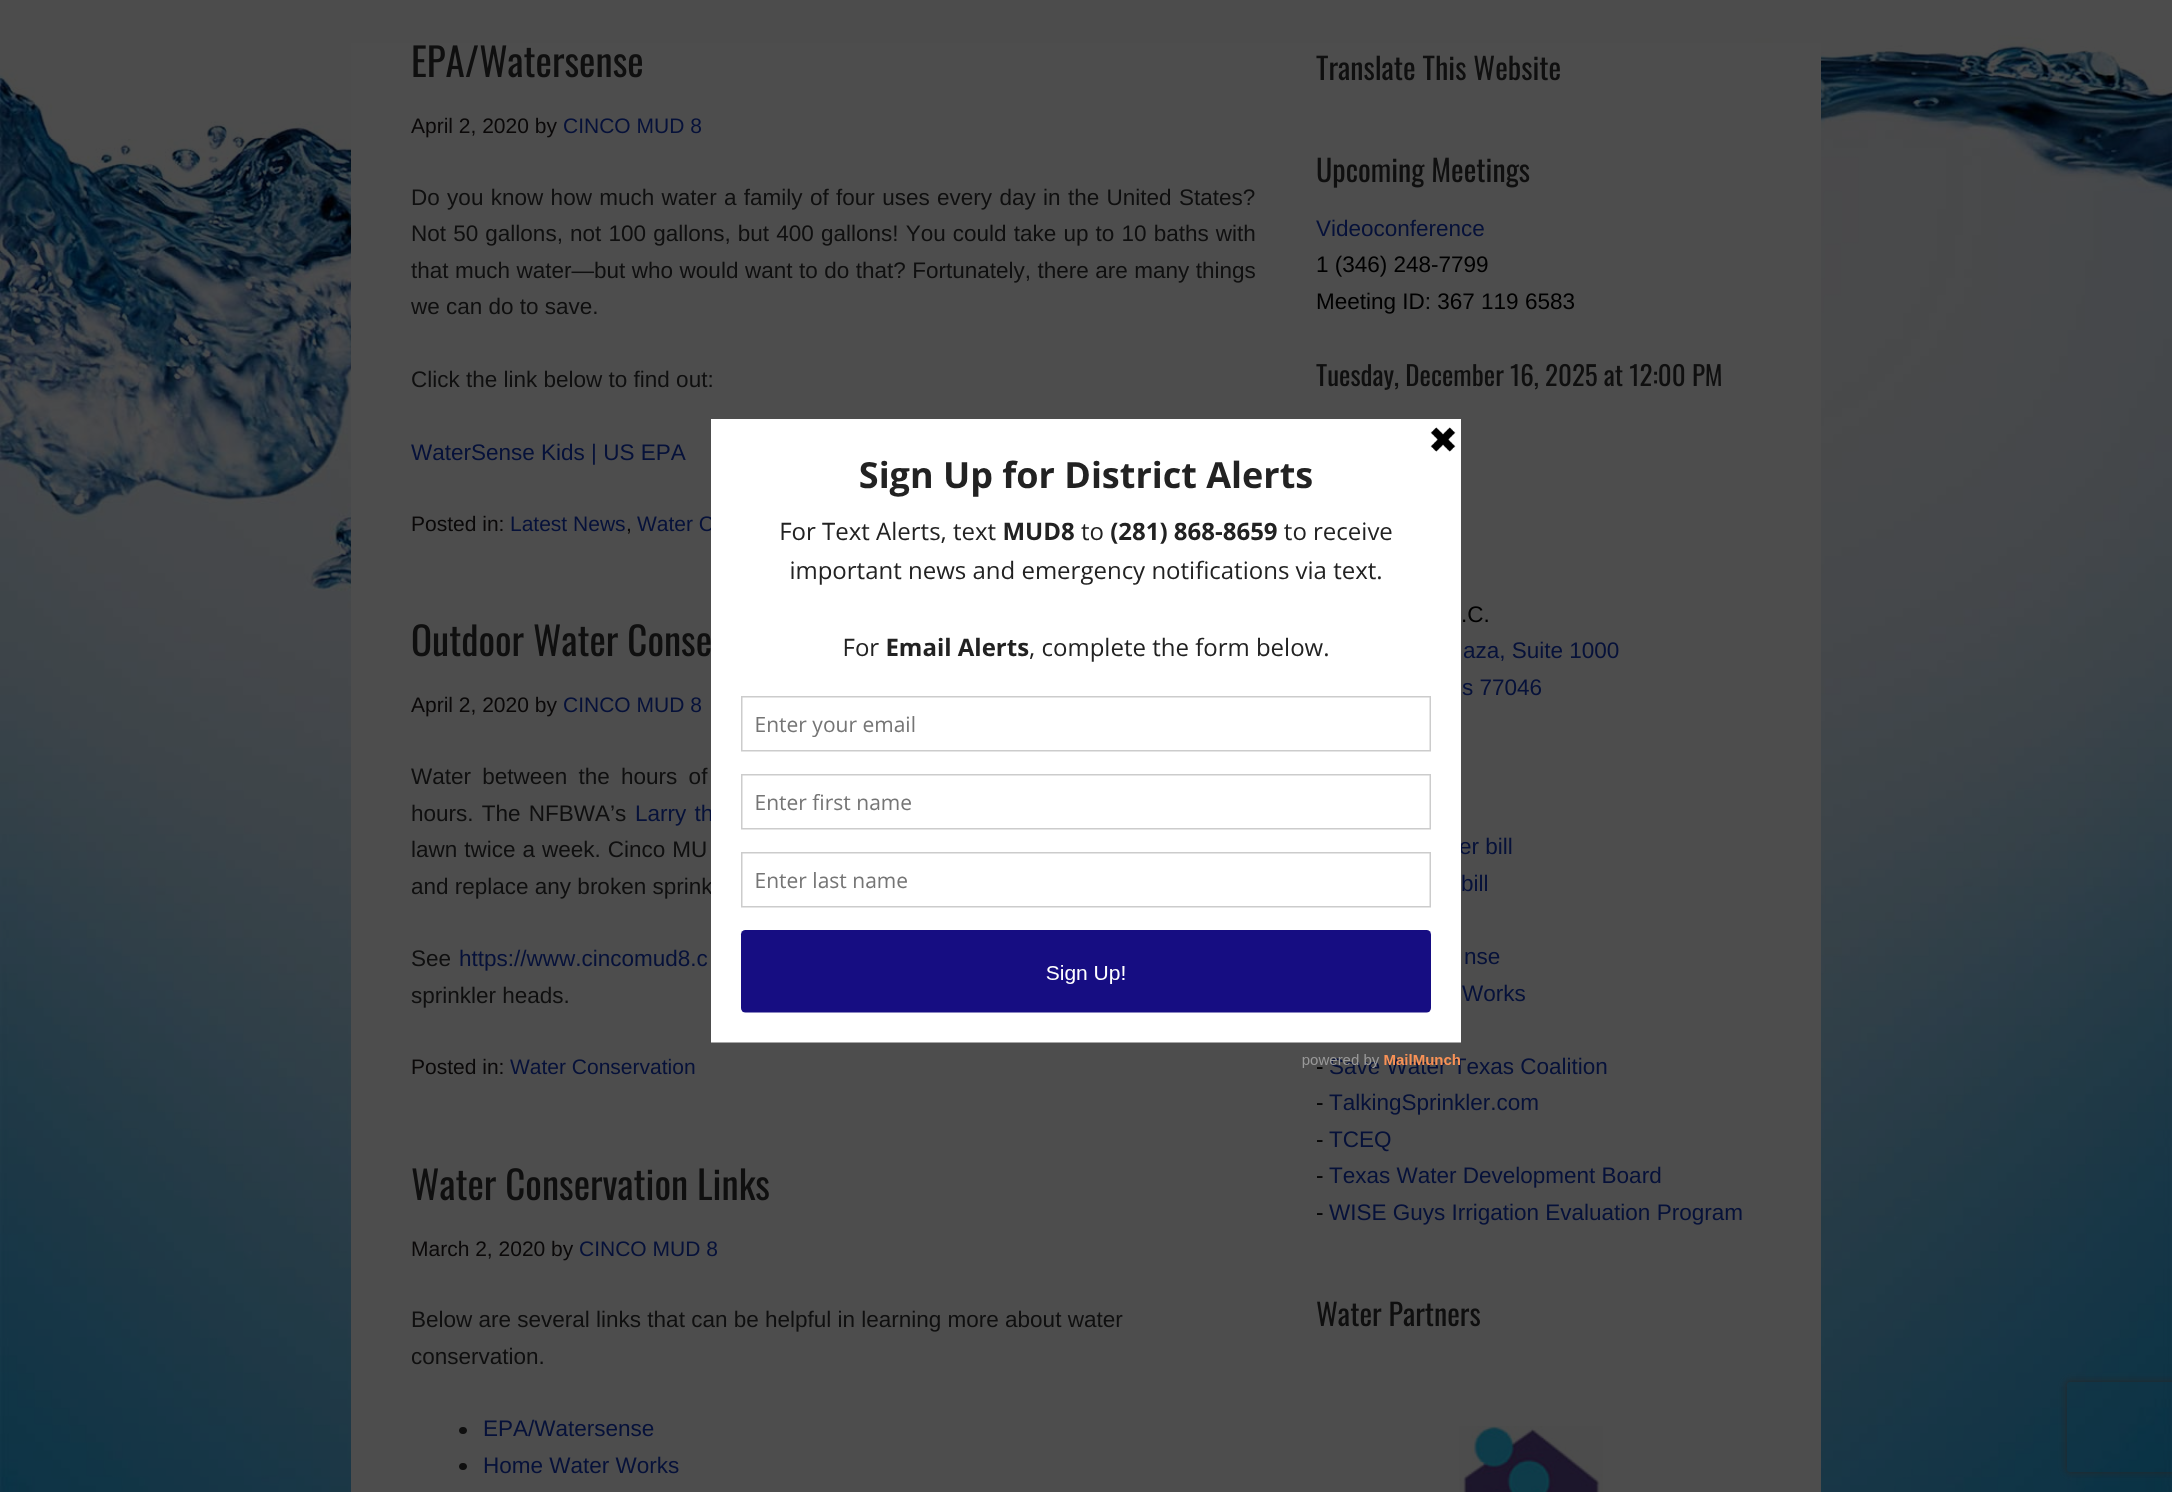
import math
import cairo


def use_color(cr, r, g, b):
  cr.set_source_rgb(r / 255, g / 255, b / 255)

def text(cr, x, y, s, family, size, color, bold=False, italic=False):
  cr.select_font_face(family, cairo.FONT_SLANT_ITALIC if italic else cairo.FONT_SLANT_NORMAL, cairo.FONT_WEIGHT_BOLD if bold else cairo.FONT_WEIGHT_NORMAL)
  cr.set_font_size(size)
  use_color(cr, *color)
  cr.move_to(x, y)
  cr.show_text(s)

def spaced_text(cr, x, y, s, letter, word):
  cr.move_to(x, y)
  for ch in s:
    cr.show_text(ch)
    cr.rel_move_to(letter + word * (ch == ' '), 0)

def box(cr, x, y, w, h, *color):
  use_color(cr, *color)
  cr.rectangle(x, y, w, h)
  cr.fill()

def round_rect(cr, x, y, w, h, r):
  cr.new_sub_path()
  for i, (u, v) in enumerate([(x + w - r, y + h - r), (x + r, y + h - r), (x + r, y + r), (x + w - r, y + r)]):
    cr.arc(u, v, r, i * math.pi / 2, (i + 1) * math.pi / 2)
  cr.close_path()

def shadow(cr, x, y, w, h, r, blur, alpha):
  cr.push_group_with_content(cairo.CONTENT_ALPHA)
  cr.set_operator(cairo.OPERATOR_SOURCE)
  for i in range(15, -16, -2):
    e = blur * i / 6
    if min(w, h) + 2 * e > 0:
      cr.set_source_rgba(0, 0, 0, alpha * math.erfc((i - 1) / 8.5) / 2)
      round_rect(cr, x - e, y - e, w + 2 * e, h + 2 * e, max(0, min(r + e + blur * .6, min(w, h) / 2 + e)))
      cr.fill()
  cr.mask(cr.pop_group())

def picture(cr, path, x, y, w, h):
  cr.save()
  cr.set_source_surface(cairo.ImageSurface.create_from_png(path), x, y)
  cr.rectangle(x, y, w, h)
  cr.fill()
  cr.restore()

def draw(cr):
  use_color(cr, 255, 255, 255)
  cr.paint()
  picture(cr, "img_01.png", 0, 0, 2172, 1492)
  box(cr, 351, 43, 1470, 1449, 77, 77, 77)
  use_color(cr, 15, 15, 15)
  round_rect(cr, 459, 1427, 8, 7, 3.5)
  cr.fill()
  round_rect(cr, 459, 1463, 8, 7, 3.5)
  cr.fill()
  picture(cr, "img_02.png", 1459, 1426, 144, 66)
  cr.save()
  cr.set_fill_rule(cairo.FILL_RULE_EVEN_ODD)
  cr.new_path()
  cr.move_to(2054, 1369)
  cr.line_to(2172, 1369)
  cr.line_to(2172, 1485)
  cr.line_to(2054, 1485)
  cr.close_path()
  cr.move_to(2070, 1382)
  cr.line_to(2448, 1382)
  cr.curve_to(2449.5, 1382, 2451, 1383.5, 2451, 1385)
  cr.line_to(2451, 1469)
  cr.curve_to(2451, 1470.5, 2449.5, 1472, 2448, 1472)
  cr.line_to(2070, 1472)
  cr.curve_to(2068.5, 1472, 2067, 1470.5, 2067, 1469)
  cr.line_to(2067, 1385)
  cr.curve_to(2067, 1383.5, 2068.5, 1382, 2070, 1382)
  cr.close_path()
  cr.clip()
  use_color(cr, 38, 38, 38)
  shadow(cr, 2067, 1382, 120, 90, 3, 4, 1)
  cr.restore()
  text(cr, 411, 77, "EPA/Watersense", "Oswald", 39, (15, 15, 15))
  text(cr, 411, 133, "April 2, 2020 by", "Liberation Sans", 21, (10, 8, 8))
  text(cr, 563, 133, "CINCO MUD 8", "Liberation Sans", 21, (6, 17, 57))
  cr.set_font_size(22.5)
  use_color(cr, 15, 15, 15)
  spaced_text(cr, 411, 205, "Do you know how much water a family of four uses every day in the United States?", 0, 1.1)
  spaced_text(cr, 411, 241, "Not 50 gallons, not 100 gallons, but 400 gallons! You could take up to 10 baths with", 0, 0.9)
  spaced_text(cr, 411, 278, "that much water—but who would want to do that? Fortunately, there are many things", 0, 0.25)
  text(cr, 411, 314, "we can do to save.", "Liberation Sans", 22.5, (15, 15, 15))
  text(cr, 411, 387, "Click the link below to find out:", "Liberation Sans", 22.5, (15, 15, 15))
  text(cr, 411, 460, "WaterSense Kids | US EPA", "Liberation Sans", 22.5, (6, 17, 57))
  text(cr, 411, 531, "Posted in:", "Liberation Sans", 21, (10, 8, 8))
  text(cr, 510, 531, "Latest News", "Liberation Sans", 21, (6, 17, 57))
  text(cr, 626, 531, ",", "Liberation Sans", 21, (10, 8, 8))
  text(cr, 637, 531, "Water C", "Liberation Sans", 21, (6, 17, 57))
  text(cr, 411, 656, "Outdoor Water Conse", "Oswald", 39, (15, 15, 15))
  text(cr, 411, 712, "April 2, 2020 by", "Liberation Sans", 21, (10, 8, 8))
  text(cr, 563, 712, "CINCO MUD 8", "Liberation Sans", 21, (6, 17, 57))
  cr.set_font_size(22.5)
  use_color(cr, 15, 15, 15)
  spaced_text(cr, 411, 784, "Water between the hours of", 0, 5)
  spaced_text(cr, 411, 821, "hours. The NFBWA’s", 0, 2)
  use_color(cr, 6, 17, 57)
  spaced_text(cr, 635, 821, "Larry th", 0, 2)
  use_color(cr, 15, 15, 15)
  spaced_text(cr, 411, 857, "lawn twice a week. Cinco MU", 0, 0.75)
  text(cr, 411, 894, "and replace any broken sprink", "Liberation Sans", 22.5, (15, 15, 15))
  text(cr, 411, 966, "See", "Liberation Sans", 22.5, (15, 15, 15))
  text(cr, 459, 966, "https://www.cincomud8.c", "Liberation Sans", 22.5, (6, 17, 57))
  text(cr, 411, 1003, "sprinkler heads.", "Liberation Sans", 22.5, (15, 15, 15))
  text(cr, 411, 1074, "Posted in:", "Liberation Sans", 21, (10, 8, 8))
  text(cr, 510, 1074, "Water Conservation", "Liberation Sans", 21, (6, 17, 57))
  text(cr, 411, 1200, "Water Conservation Links", "Oswald", 39, (15, 15, 15))
  text(cr, 411, 1256, "March 2, 2020 by", "Liberation Sans", 21, (10, 8, 8))
  text(cr, 579, 1256, "CINCO MUD 8", "Liberation Sans", 21, (6, 17, 57))
  text(cr, 411, 1327, "Below are several links that can be helpful in learning more about water", "Liberation Sans", 22.5, (15, 15, 15))
  text(cr, 411, 1364, "conservation.", "Liberation Sans", 22.5, (15, 15, 15))
  text(cr, 483, 1436, "EPA/Watersense", "Liberation Sans", 22.5, (6, 17, 57))
  text(cr, 483, 1473, "Home Water Works", "Liberation Sans", 22.5, (6, 17, 57))
  text(cr, 1316, 80, "Translate This Website", "Oswald", 30, (15, 15, 15))
  text(cr, 1316, 182, "Upcoming Meetings", "Oswald", 30, (15, 15, 15))
  text(cr, 1316, 236, "Videoconference", "Liberation Sans", 22.5, (6, 17, 57))
  text(cr, 1316, 272, "1 (346) 248-7799", "Liberation Sans", 22.5, (0, 0, 0))
  text(cr, 1316, 309, "Meeting ID: 367 119 6583", "Liberation Sans", 22.5, (0, 0, 0))
  text(cr, 1316, 386, "Tuesday, December 16, 2025 at 12:00 PM", "Oswald", 27, (15, 15, 15))
  text(cr, 1461, 622, ".C.", "Liberation Sans", 22.5, (0, 0, 0))
  text(cr, 1463, 658, "aza, Suite 1000", "Liberation Sans", 22.5, (6, 17, 57))
  text(cr, 1462, 695, "s 77046", "Liberation Sans", 22.5, (6, 17, 57))
  text(cr, 1459, 854, "er bill", "Liberation Sans", 22.5, (6, 17, 57))
  text(cr, 1461, 891, "bill", "Liberation Sans", 22.5, (6, 17, 57))
  text(cr, 1464, 964, "nse", "Liberation Sans", 22.5, (6, 17, 57))
  text(cr, 1462, 1001, "Works", "Liberation Sans", 22.5, (6, 17, 57))
  text(cr, 1316, 1074, "-", "Liberation Sans", 22.5, (0, 0, 0))
  text(cr, 1329, 1074, "Save Water Texas Coalition", "Liberation Sans", 22.5, (6, 17, 57))
  text(cr, 1316, 1110, "-", "Liberation Sans", 22.5, (0, 0, 0))
  text(cr, 1329, 1110, "TalkingSprinkler.com", "Liberation Sans", 22.5, (6, 17, 57))
  text(cr, 1316, 1147, "-", "Liberation Sans", 22.5, (0, 0, 0))
  text(cr, 1329, 1147, "TCEQ", "Liberation Sans", 22.5, (6, 17, 57))
  text(cr, 1316, 1183, "-", "Liberation Sans", 22.5, (0, 0, 0))
  text(cr, 1329, 1183, "Texas Water Development Board", "Liberation Sans", 22.5, (6, 17, 57))
  text(cr, 1316, 1220, "-", "Liberation Sans", 22.5, (0, 0, 0))
  text(cr, 1329, 1220, "WISE Guys Irrigation Evaluation Program", "Liberation Sans", 22.5, (6, 17, 57))
  text(cr, 1316, 1326, "Water Partners", "Oswald", 30, (15, 15, 15))
  picture(cr, "img_03.png", 711, 419, 750, 649)


surface = cairo.ImageSurface(cairo.FORMAT_RGB24, 2172, 1492)
cr = cairo.Context(surface)
options = cairo.FontOptions()
options.set_hint_metrics(cairo.HINT_METRICS_OFF)
options.set_hint_style(cairo.HINT_STYLE_NONE)
cr.set_font_options(options)
cr.set_miter_limit(4)
draw(cr)
surface.write_to_png("out.png")
